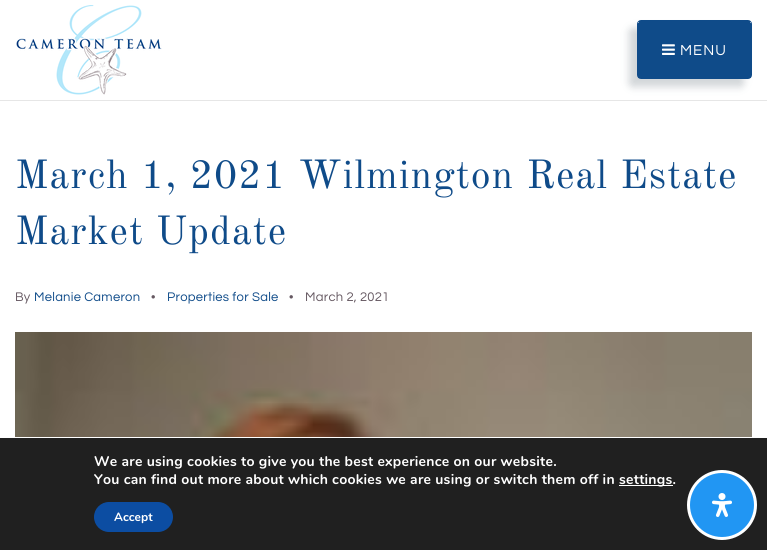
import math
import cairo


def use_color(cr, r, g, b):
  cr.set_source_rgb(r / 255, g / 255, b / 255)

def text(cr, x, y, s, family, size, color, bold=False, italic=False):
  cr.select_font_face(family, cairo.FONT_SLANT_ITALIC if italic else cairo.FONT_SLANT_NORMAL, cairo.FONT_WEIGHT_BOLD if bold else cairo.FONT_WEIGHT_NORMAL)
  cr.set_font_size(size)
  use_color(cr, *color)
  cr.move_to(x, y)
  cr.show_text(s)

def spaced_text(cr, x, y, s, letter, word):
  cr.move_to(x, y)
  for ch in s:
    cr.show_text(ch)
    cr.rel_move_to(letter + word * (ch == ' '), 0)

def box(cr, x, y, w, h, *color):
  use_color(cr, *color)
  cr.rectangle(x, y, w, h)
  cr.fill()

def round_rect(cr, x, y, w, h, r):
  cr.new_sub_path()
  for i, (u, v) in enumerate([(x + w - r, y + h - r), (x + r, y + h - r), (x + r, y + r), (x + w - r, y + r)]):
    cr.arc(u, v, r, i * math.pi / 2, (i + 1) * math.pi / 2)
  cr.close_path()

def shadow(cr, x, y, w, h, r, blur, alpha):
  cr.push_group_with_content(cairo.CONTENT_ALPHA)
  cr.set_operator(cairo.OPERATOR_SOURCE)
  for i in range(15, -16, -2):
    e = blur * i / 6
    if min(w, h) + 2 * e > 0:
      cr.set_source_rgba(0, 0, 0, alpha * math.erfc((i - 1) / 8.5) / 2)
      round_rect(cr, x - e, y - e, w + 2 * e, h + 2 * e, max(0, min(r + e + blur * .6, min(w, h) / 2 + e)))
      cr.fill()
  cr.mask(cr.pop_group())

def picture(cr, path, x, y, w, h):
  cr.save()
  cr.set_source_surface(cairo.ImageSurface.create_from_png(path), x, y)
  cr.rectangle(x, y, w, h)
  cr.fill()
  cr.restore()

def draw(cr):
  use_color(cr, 255, 255, 255)
  cr.paint()
  box(cr, 0, 100, 767, 1, 230, 230, 230)
  picture(cr, "img_01.png", 16, 5, 146, 90)
  use_color(cr, 60, 78, 89)
  shadow(cr, 629, 28, 115, 59, 4, 4, 0.23)
  round_rect(cr, 637.5, 20.5, 114, 58, 3.5)
  use_color(cr, 15, 75, 137)
  cr.set_line_width(1)
  cr.stroke()
  box(cr, 639, 21, 111, 2, 15, 75, 137)
  box(cr, 638, 23, 113, 55, 15, 75, 137)
  picture(cr, "img_02.png", 662, 44, 13, 11)
  picture(cr, "img_03.png", 15, 332, 737, 105)
  box(cr, 0, 438, 767, 112, 32, 32, 32)
  box(cr, 619, 485, 54, 1, 255, 255, 255)
  use_color(cr, 12, 77, 162)
  round_rect(cr, 94, 502, 79, 30, 15)
  cr.fill()
  use_color(cr, 33, 150, 243)
  cr.arc(722, 505, 33.5, 0, 2 * math.pi)
  cr.fill_preserve()
  use_color(cr, 255, 255, 255)
  cr.set_line_width(3)
  cr.stroke()
  picture(cr, "img_04.png", 712, 493, 20, 24)
  cr.select_font_face("Questrial")
  cr.set_font_size(15)
  spaced_text(cr, 680, 55, "MENU", 1, 0)
  cr.select_font_face("Old Standard TT")
  cr.set_font_size(40)
  use_color(cr, 15, 75, 137)
  spaced_text(cr, 15, 188, "March 1, 2021 Wilmington Real Estate", 1, 0)
  spaced_text(cr, 15, 244, "Market Update", 1, 0)
  cr.select_font_face("Questrial")
  cr.set_font_size(13)
  use_color(cr, 101, 88, 97)
  spaced_text(cr, 15, 301, "By", 0.25, 0)
  use_color(cr, 15, 75, 137)
  spaced_text(cr, 34, 301, "Melanie Cameron", 0.25, 0)
  use_color(cr, 101, 88, 97)
  spaced_text(cr, 151, 301, "•", 0.25, 0)
  use_color(cr, 15, 75, 137)
  spaced_text(cr, 167, 301, "Properties for Sale", 0.25, 0)
  use_color(cr, 101, 88, 97)
  spaced_text(cr, 289, 301, "•", 0.25, 0)
  spaced_text(cr, 305, 301, "March 2, 2021", 0.25, 0)
  cr.select_font_face("Nunito", cairo.FONT_SLANT_NORMAL, cairo.FONT_WEIGHT_BOLD)
  cr.set_font_size(14)
  use_color(cr, 255, 255, 255)
  spaced_text(cr, 94, 466, "We are using cookies to give you the best experience on our website.", 0.25, 0)
  spaced_text(cr, 94, 484, "You can find out more about which cookies we are using or switch them off in", 0.25, 0)
  spaced_text(cr, 619, 484, "settings.", 0.25, 0)
  text(cr, 114, 521, "Accept", "Nunito", 12, (255, 255, 255), bold=True)


surface = cairo.ImageSurface(cairo.FORMAT_RGB24, 767, 550)
cr = cairo.Context(surface)
options = cairo.FontOptions()
options.set_hint_metrics(cairo.HINT_METRICS_OFF)
options.set_hint_style(cairo.HINT_STYLE_NONE)
cr.set_font_options(options)
cr.set_miter_limit(4)
draw(cr)
surface.write_to_png("out.png")
